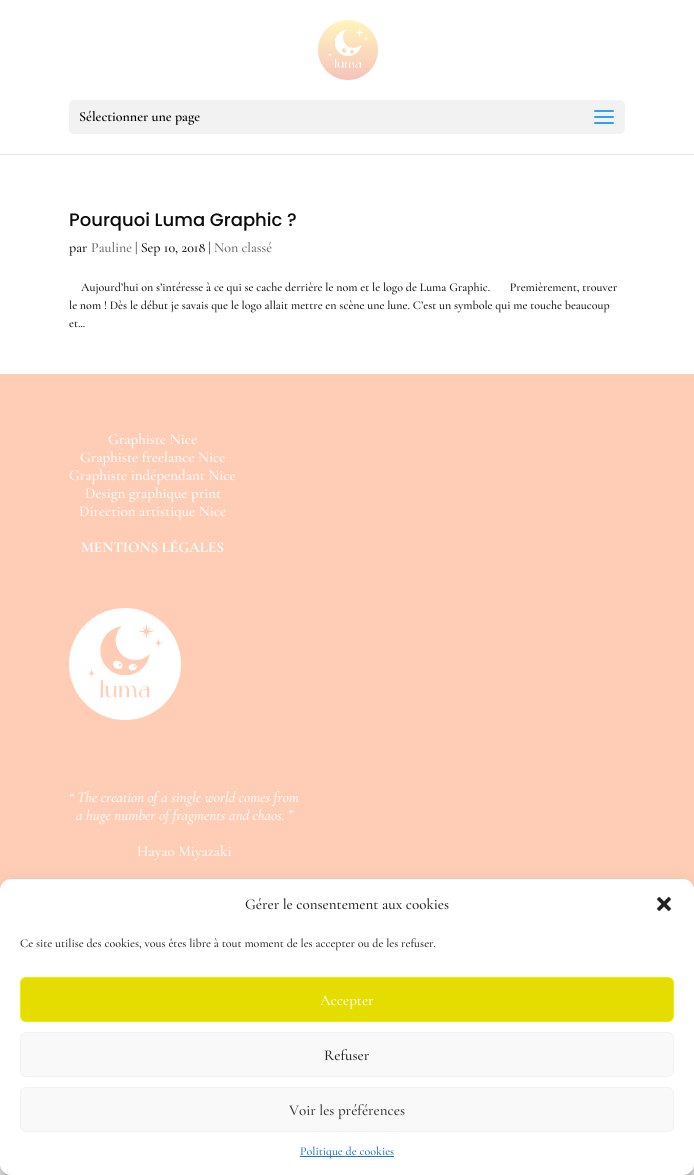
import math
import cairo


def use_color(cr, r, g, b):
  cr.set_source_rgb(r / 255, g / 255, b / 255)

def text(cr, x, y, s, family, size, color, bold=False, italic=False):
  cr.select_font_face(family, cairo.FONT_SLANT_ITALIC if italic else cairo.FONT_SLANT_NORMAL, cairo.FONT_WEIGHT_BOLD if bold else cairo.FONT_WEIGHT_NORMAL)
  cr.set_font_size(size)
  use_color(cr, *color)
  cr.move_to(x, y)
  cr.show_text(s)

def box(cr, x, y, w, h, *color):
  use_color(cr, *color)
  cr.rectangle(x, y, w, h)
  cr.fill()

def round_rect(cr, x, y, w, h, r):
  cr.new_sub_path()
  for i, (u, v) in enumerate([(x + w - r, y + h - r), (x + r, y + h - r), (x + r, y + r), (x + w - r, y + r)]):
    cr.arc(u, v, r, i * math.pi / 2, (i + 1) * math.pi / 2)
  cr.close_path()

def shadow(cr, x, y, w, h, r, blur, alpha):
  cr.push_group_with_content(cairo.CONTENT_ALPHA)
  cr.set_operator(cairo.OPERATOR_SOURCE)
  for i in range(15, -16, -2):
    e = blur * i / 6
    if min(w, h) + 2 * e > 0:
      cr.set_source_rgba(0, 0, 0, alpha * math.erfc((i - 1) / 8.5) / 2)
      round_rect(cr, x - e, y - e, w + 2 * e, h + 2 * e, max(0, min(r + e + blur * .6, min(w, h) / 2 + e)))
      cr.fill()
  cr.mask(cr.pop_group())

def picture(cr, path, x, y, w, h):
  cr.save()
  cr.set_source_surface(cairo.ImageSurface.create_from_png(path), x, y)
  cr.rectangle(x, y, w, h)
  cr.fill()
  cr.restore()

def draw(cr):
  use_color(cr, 255, 255, 255)
  cr.paint()
  box(cr, 0, 154, 694, 1, 230, 230, 230)
  picture(cr, "img_01.png", 318, 20, 60, 60)
  use_color(cr, 242, 242, 242)
  round_rect(cr, 69, 100, 556, 34, 5)
  cr.fill()
  picture(cr, "img_02.png", 594, 110, 20, 14)
  box(cr, 0, 374, 694, 516, 255, 205, 181)
  picture(cr, "img_03.png", 69, 608, 112, 112)
  use_color(cr, 0, 0, 0)
  shadow(cr, 0, 885, 694, 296, 11, 3, 0.23)
  shadow(cr, 0, 889, 694, 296, 11, 10, 0.19)
  use_color(cr, 255, 255, 255)
  round_rect(cr, 0, 879, 694, 296, 11)
  cr.fill()
  picture(cr, "img_04.png", 657, 897, 14, 14)
  use_color(cr, 229, 221, 0)
  round_rect(cr, 20.5, 977.5, 653, 44, 5.5)
  cr.fill_preserve()
  use_color(cr, 237, 237, 7)
  cr.set_line_width(1)
  cr.stroke()
  use_color(cr, 249, 249, 249)
  round_rect(cr, 20.5, 1032.5, 653, 44, 5.5)
  cr.fill_preserve()
  use_color(cr, 242, 242, 242)
  cr.stroke()
  use_color(cr, 249, 249, 249)
  round_rect(cr, 20.5, 1087.5, 653, 44, 5.5)
  cr.fill_preserve()
  use_color(cr, 242, 242, 242)
  cr.stroke()
  box(cr, 300, 1156, 94, 1, 30, 115, 190)
  text(cr, 79, 121, "Sélectionner une page", "Cormorant Garamond SemiBold", 14, (0, 0, 0))
  text(cr, 69, 226, "Pourquoi Luma Graphic ?", "Poppins Medium", 18, (10, 10, 10))
  text(cr, 69, 252, "par", "Cormorant Garamond Medium", 14, (10, 10, 10))
  text(cr, 91, 252, "Pauline", "Cormorant Garamond Medium", 14, (102, 102, 102))
  text(cr, 135, 252, "| Sep 10, 2018 |", "Cormorant Garamond Medium", 14, (10, 10, 10))
  text(cr, 214, 252, "Non classé", "Cormorant Garamond Medium", 14, (102, 102, 102))
  text(cr, 81, 291, "Aujourd’hui on s’intéresse à ce qui se cache derrière le nom et le logo de Luma Graphic.       Premièrement, trouver", "Cormorant Garamond Medium", 12, (10, 10, 10))
  text(cr, 69, 309, "le nom ! Dès le début je savais que le logo allait mettre en scène une lune. C’est un symbole qui me touche beaucoup", "Cormorant Garamond Medium", 12, (10, 10, 10))
  text(cr, 69, 327, "et...", "Cormorant Garamond Medium", 12, (10, 10, 10))
  text(cr, 108, 444, "Graphiste Nice", "Cormorant Garamond Medium", 15, (255, 255, 255))
  text(cr, 80, 462, "Graphiste freelance Nice", "Cormorant Garamond Medium", 15, (255, 255, 255))
  text(cr, 69, 480, "Graphiste indépendant Nice", "Cormorant Garamond Medium", 15, (255, 255, 255))
  text(cr, 85, 498, "Design graphique print", "Cormorant Garamond Medium", 15, (255, 255, 255))
  text(cr, 79, 516, "Direction artistique Nice", "Cormorant Garamond Medium", 15, (255, 255, 255))
  text(cr, 81, 552, "MENTIONS LÉGALES", "Cormorant Garamond", 15, (255, 255, 255), bold=True)
  text(cr, 69, 802, "“ The creation of a single world comes from", "Cormorant Garamond Medium", 15, (255, 255, 255), italic=True)
  text(cr, 76, 820, "a huge number of fragments and chaos. ”", "Cormorant Garamond Medium", 15, (255, 255, 255), italic=True)
  text(cr, 137, 856, "Hayao Miyazaki", "Cormorant Garamond Medium", 15, (255, 255, 255))
  text(cr, 245, 909, "Gérer le consentement aux cookies", "Cormorant Garamond Medium", 15, (34, 34, 34))
  text(cr, 20, 947, "Ce site utilise des cookies, vous êtes libre à tout moment de les accepter ou de les refuser.", "Cormorant Garamond Medium", 12, (34, 34, 34))
  text(cr, 320, 1005, "Accepter", "Cormorant Garamond Medium", 15, (255, 255, 255))
  text(cr, 324, 1060, "Refuser", "Cormorant Garamond Medium", 15, (34, 34, 34))
  text(cr, 289, 1115, "Voir les préférences", "Cormorant Garamond Medium", 15, (51, 51, 51))
  text(cr, 300, 1155, "Politique de cookies", "Cormorant Garamond Medium", 12, (30, 115, 190))


surface = cairo.ImageSurface(cairo.FORMAT_RGB24, 694, 1175)
cr = cairo.Context(surface)
options = cairo.FontOptions()
options.set_hint_metrics(cairo.HINT_METRICS_OFF)
options.set_hint_style(cairo.HINT_STYLE_NONE)
cr.set_font_options(options)
cr.set_miter_limit(4)
draw(cr)
surface.write_to_png("out.png")
